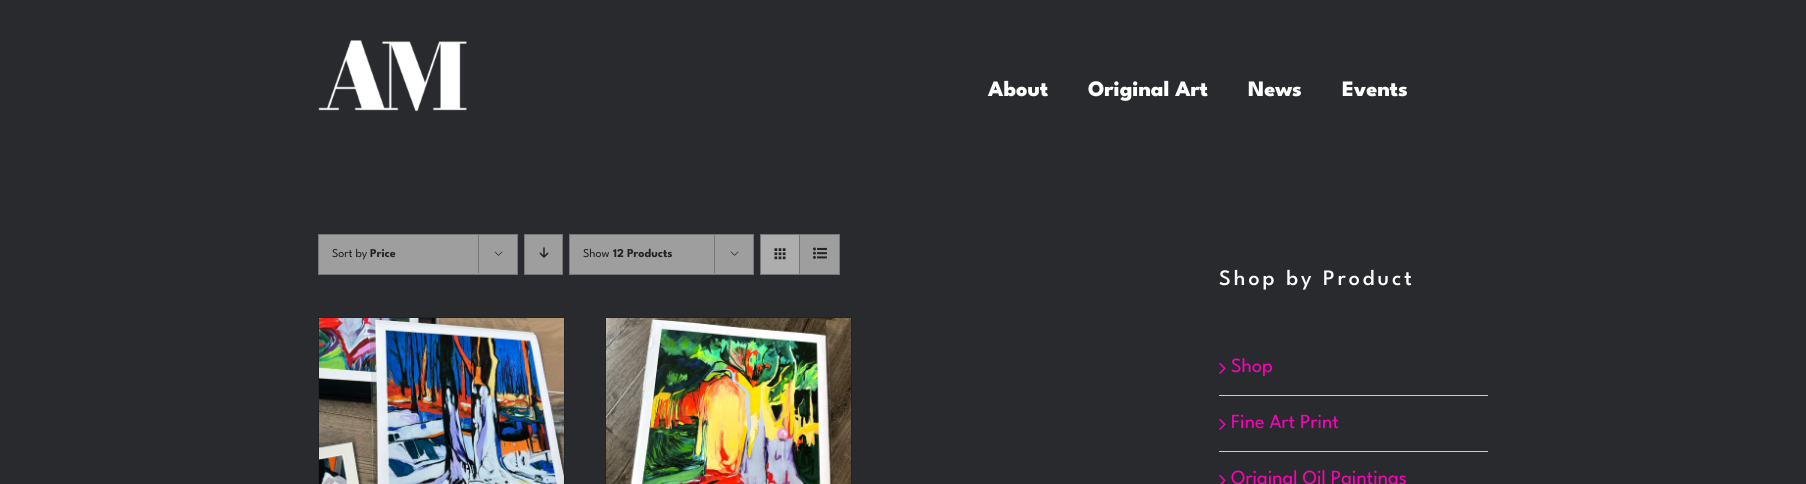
import math
import cairo


def use_color(cr, r, g, b):
  cr.set_source_rgb(r / 255, g / 255, b / 255)

def text(cr, x, y, s, family, size, color, bold=False, italic=False):
  cr.select_font_face(family, cairo.FONT_SLANT_ITALIC if italic else cairo.FONT_SLANT_NORMAL, cairo.FONT_WEIGHT_BOLD if bold else cairo.FONT_WEIGHT_NORMAL)
  cr.set_font_size(size)
  use_color(cr, *color)
  cr.move_to(x, y)
  cr.show_text(s)

def spaced_text(cr, x, y, s, letter, word):
  cr.move_to(x, y)
  for ch in s:
    cr.show_text(ch)
    cr.rel_move_to(letter + word * (ch == ' '), 0)

def box(cr, x, y, w, h, *color):
  use_color(cr, *color)
  cr.rectangle(x, y, w, h)
  cr.fill()

def picture(cr, path, x, y, w, h):
  cr.save()
  cr.set_source_surface(cairo.ImageSurface.create_from_png(path), x, y)
  cr.rectangle(x, y, w, h)
  cr.fill()
  cr.restore()

def draw(cr):
  use_color(cr, 40, 42, 45)
  cr.paint()
  picture(cr, "img_01.png", 318, 40, 149, 72)
  use_color(cr, 158, 158, 158)
  cr.rectangle(318.5, 234.5, 199, 40)
  cr.fill_preserve()
  use_color(cr, 119, 119, 119)
  cr.set_line_width(1)
  cr.stroke()
  box(cr, 478, 234, 1, 39, 119, 119, 119)
  picture(cr, "img_02.png", 494, 251, 9, 5)
  use_color(cr, 158, 158, 158)
  cr.rectangle(524.5, 234.5, 38, 40)
  cr.fill_preserve()
  use_color(cr, 119, 119, 119)
  cr.stroke()
  picture(cr, "img_03.png", 539, 247, 10, 11)
  use_color(cr, 158, 158, 158)
  cr.rectangle(569.5, 234.5, 184, 40)
  cr.fill_preserve()
  use_color(cr, 119, 119, 119)
  cr.stroke()
  box(cr, 714, 234, 1, 39, 119, 119, 119)
  picture(cr, "img_02.png", 730, 251, 9, 5)
  cr.rectangle(760.5, 234.5, 79, 40)
  cr.stroke()
  box(cr, 761, 235, 38, 39, 173, 173, 173)
  box(cr, 799, 235, 1, 39, 119, 119, 119)
  picture(cr, "img_04.png", 774, 248, 12, 12)
  box(cr, 800, 235, 39, 39, 158, 158, 158)
  picture(cr, "img_05.png", 813, 247, 14, 12)
  box(cr, 318, 317, 247, 1, 33, 35, 38)
  box(cr, 564, 317, 1, 167, 33, 35, 38)
  box(cr, 318, 317, 1, 167, 33, 35, 38)
  picture(cr, "img_06.png", 319, 318, 245, 166)
  box(cr, 605, 317, 247, 1, 33, 35, 38)
  box(cr, 851, 317, 1, 167, 33, 35, 38)
  box(cr, 605, 317, 1, 167, 33, 35, 38)
  picture(cr, "img_07.png", 606, 318, 245, 166)
  box(cr, 1219, 395, 269, 1, 204, 204, 204)
  picture(cr, "img_08.png", 1219, 362, 7, 12)
  box(cr, 1219, 451, 269, 1, 204, 204, 204)
  picture(cr, "img_08.png", 1219, 418, 7, 12)
  picture(cr, "img_09.png", 1219, 474, 7, 10)
  text(cr, 988, 96, "About", "League Spartan ExtraBold", 22, (255, 255, 255))
  text(cr, 1088, 96, "Original Art", "League Spartan ExtraBold", 22, (255, 255, 255))
  text(cr, 1248, 96, "News", "League Spartan ExtraBold", 22, (255, 255, 255))
  text(cr, 1342, 96, "Events", "League Spartan ExtraBold", 22, (255, 255, 255))
  text(cr, 332, 257, "Sort by", "League Spartan", 12, (33, 35, 38))
  text(cr, 370, 257, "Price", "League Spartan", 12, (33, 35, 38), bold=True)
  text(cr, 583, 257, "Show", "League Spartan", 12, (33, 35, 38))
  text(cr, 613, 257, "12 Products", "League Spartan", 12, (33, 35, 38), bold=True)
  cr.select_font_face("League Spartan Medium")
  cr.set_font_size(22)
  use_color(cr, 255, 255, 255)
  spaced_text(cr, 1219, 285, "Shop by Product", 3, 0)
  text(cr, 1231, 372, "Shop", "League Spartan", 20, (255, 0, 186))
  text(cr, 1231, 428, "Fine Art Print", "League Spartan", 20, (255, 0, 186))
  text(cr, 1231, 484, "Original Oil Paintings", "League Spartan", 20, (255, 0, 186))


surface = cairo.ImageSurface(cairo.FORMAT_RGB24, 1806, 484)
cr = cairo.Context(surface)
options = cairo.FontOptions()
options.set_hint_metrics(cairo.HINT_METRICS_OFF)
options.set_hint_style(cairo.HINT_STYLE_NONE)
cr.set_font_options(options)
cr.set_miter_limit(4)
draw(cr)
surface.write_to_png("out.png")
